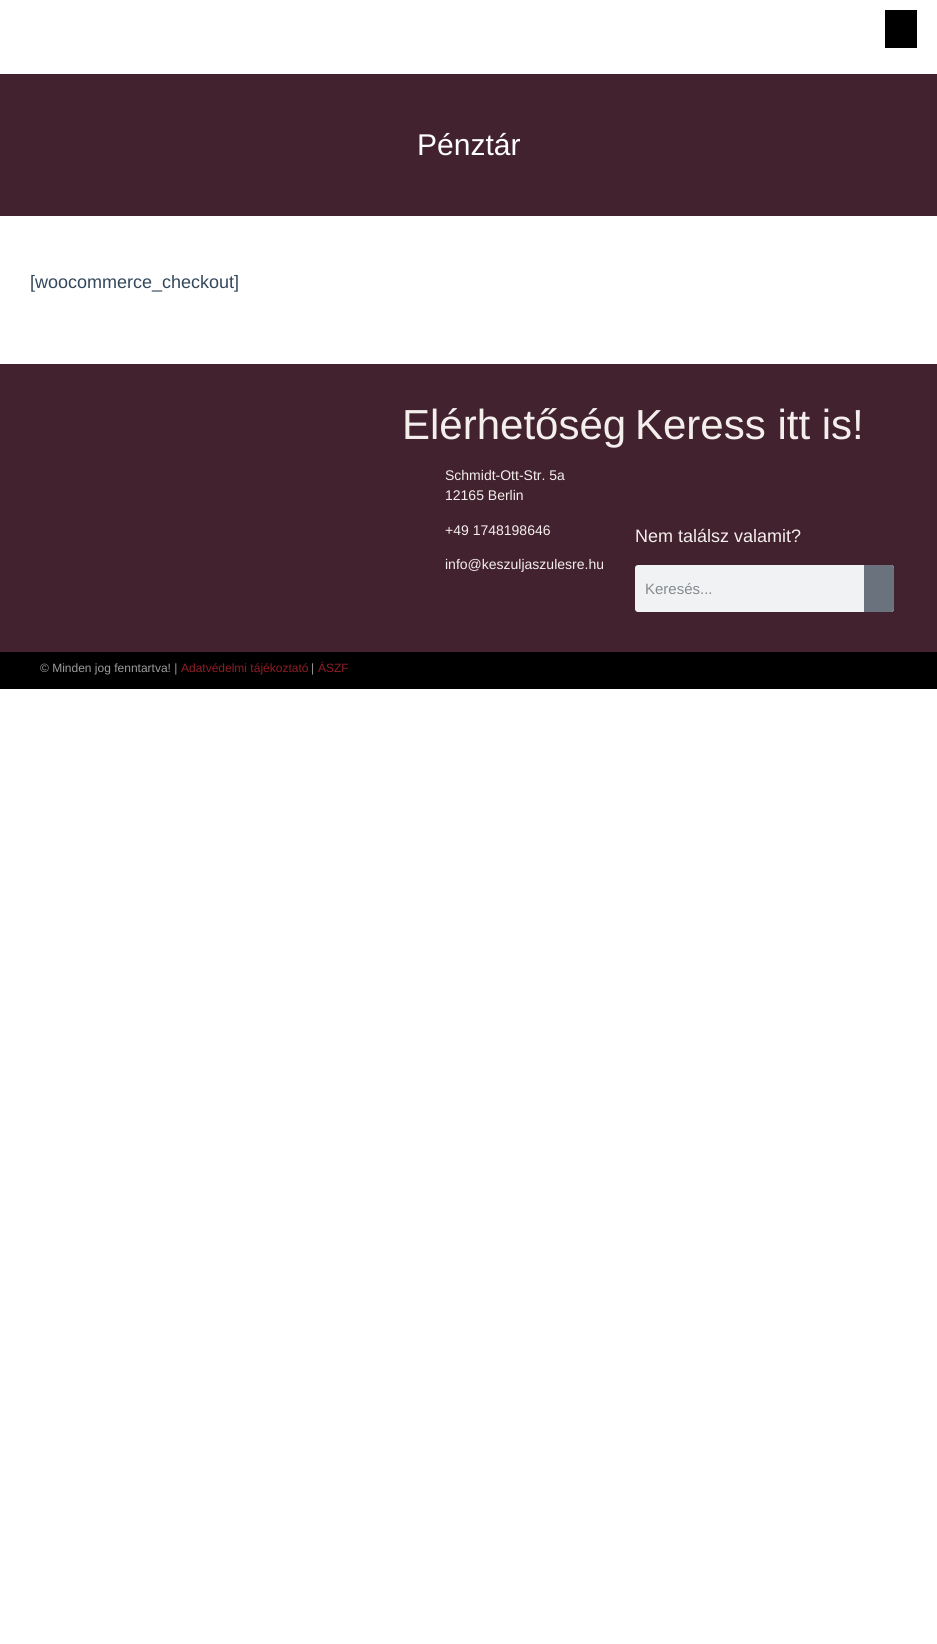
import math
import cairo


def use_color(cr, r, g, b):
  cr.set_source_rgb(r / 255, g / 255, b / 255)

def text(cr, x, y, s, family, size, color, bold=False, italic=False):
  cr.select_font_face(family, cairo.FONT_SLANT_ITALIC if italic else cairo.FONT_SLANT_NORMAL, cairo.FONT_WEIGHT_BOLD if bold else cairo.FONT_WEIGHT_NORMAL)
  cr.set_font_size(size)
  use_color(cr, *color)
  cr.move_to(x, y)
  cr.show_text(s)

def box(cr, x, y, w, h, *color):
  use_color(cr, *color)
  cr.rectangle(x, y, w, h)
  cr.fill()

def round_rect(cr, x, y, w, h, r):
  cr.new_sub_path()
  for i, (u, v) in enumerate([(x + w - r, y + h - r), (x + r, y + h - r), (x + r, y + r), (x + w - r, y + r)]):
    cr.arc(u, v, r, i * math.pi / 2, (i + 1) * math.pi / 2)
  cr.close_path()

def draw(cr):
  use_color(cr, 255, 255, 255)
  cr.paint()
  box(cr, 885, 10, 32, 38, 0, 0, 0)
  box(cr, 0, 74, 937, 142, 66, 34, 47)
  box(cr, 0, 364, 937, 288, 66, 34, 47)
  use_color(cr, 241, 242, 243)
  round_rect(cr, 635, 565, 259, 47, 3)
  cr.fill()
  use_color(cr, 105, 114, 125)
  cr.new_path()
  cr.move_to(864, 565)
  cr.line_to(891, 565)
  cr.curve_to(892.5, 565, 894, 566.5, 894, 568)
  cr.line_to(894, 609)
  cr.curve_to(894, 610.5, 892.5, 612, 891, 612)
  cr.line_to(864, 612)
  cr.close_path()
  cr.fill()
  box(cr, 0, 652, 937, 37, 0, 0, 0)
  text(cr, 417, 155, "Pénztár", "Liberation Sans", 30, (255, 255, 255))
  text(cr, 30, 288, "[woocommerce_checkout]", "Liberation Sans", 18, (51, 71, 91))
  text(cr, 402, 439, "Elérhetőség", "Liberation Sans", 42, (244, 239, 237))
  text(cr, 445, 480, "Schmidt-Ott-Str. 5a", "Liberation Sans", 14, (244, 239, 237))
  text(cr, 445, 500, "12165 Berlin", "Liberation Sans", 14, (244, 239, 237))
  text(cr, 445, 535, "+49 1748198646", "Liberation Sans", 14, (244, 239, 237))
  text(cr, 445, 569, "info@keszuljaszulesre.hu", "Liberation Sans", 14, (244, 239, 237))
  text(cr, 635, 439, "Keress itt is!", "Liberation Sans", 42, (244, 239, 237))
  text(cr, 635, 542, "Nem találsz valamit?", "Liberation Sans", 18, (244, 239, 237))
  text(cr, 645, 594, "Keresés...", "Liberation Sans", 15, (134, 138, 142))
  text(cr, 40, 672, "© Minden jog fenntartva! |", "Liberation Sans", 12, (156, 156, 156))
  text(cr, 181, 672, "Adatvédelmi tájékoztató", "Liberation Sans", 12, (143, 29, 37))
  text(cr, 311, 672, "|", "Liberation Sans", 12, (156, 156, 156))
  text(cr, 318, 672, "ÁSZF", "Liberation Sans", 12, (143, 29, 37))


surface = cairo.ImageSurface(cairo.FORMAT_RGB24, 937, 1644)
cr = cairo.Context(surface)
options = cairo.FontOptions()
options.set_hint_metrics(cairo.HINT_METRICS_OFF)
options.set_hint_style(cairo.HINT_STYLE_NONE)
cr.set_font_options(options)
cr.set_miter_limit(4)
draw(cr)
surface.write_to_png("out.png")
